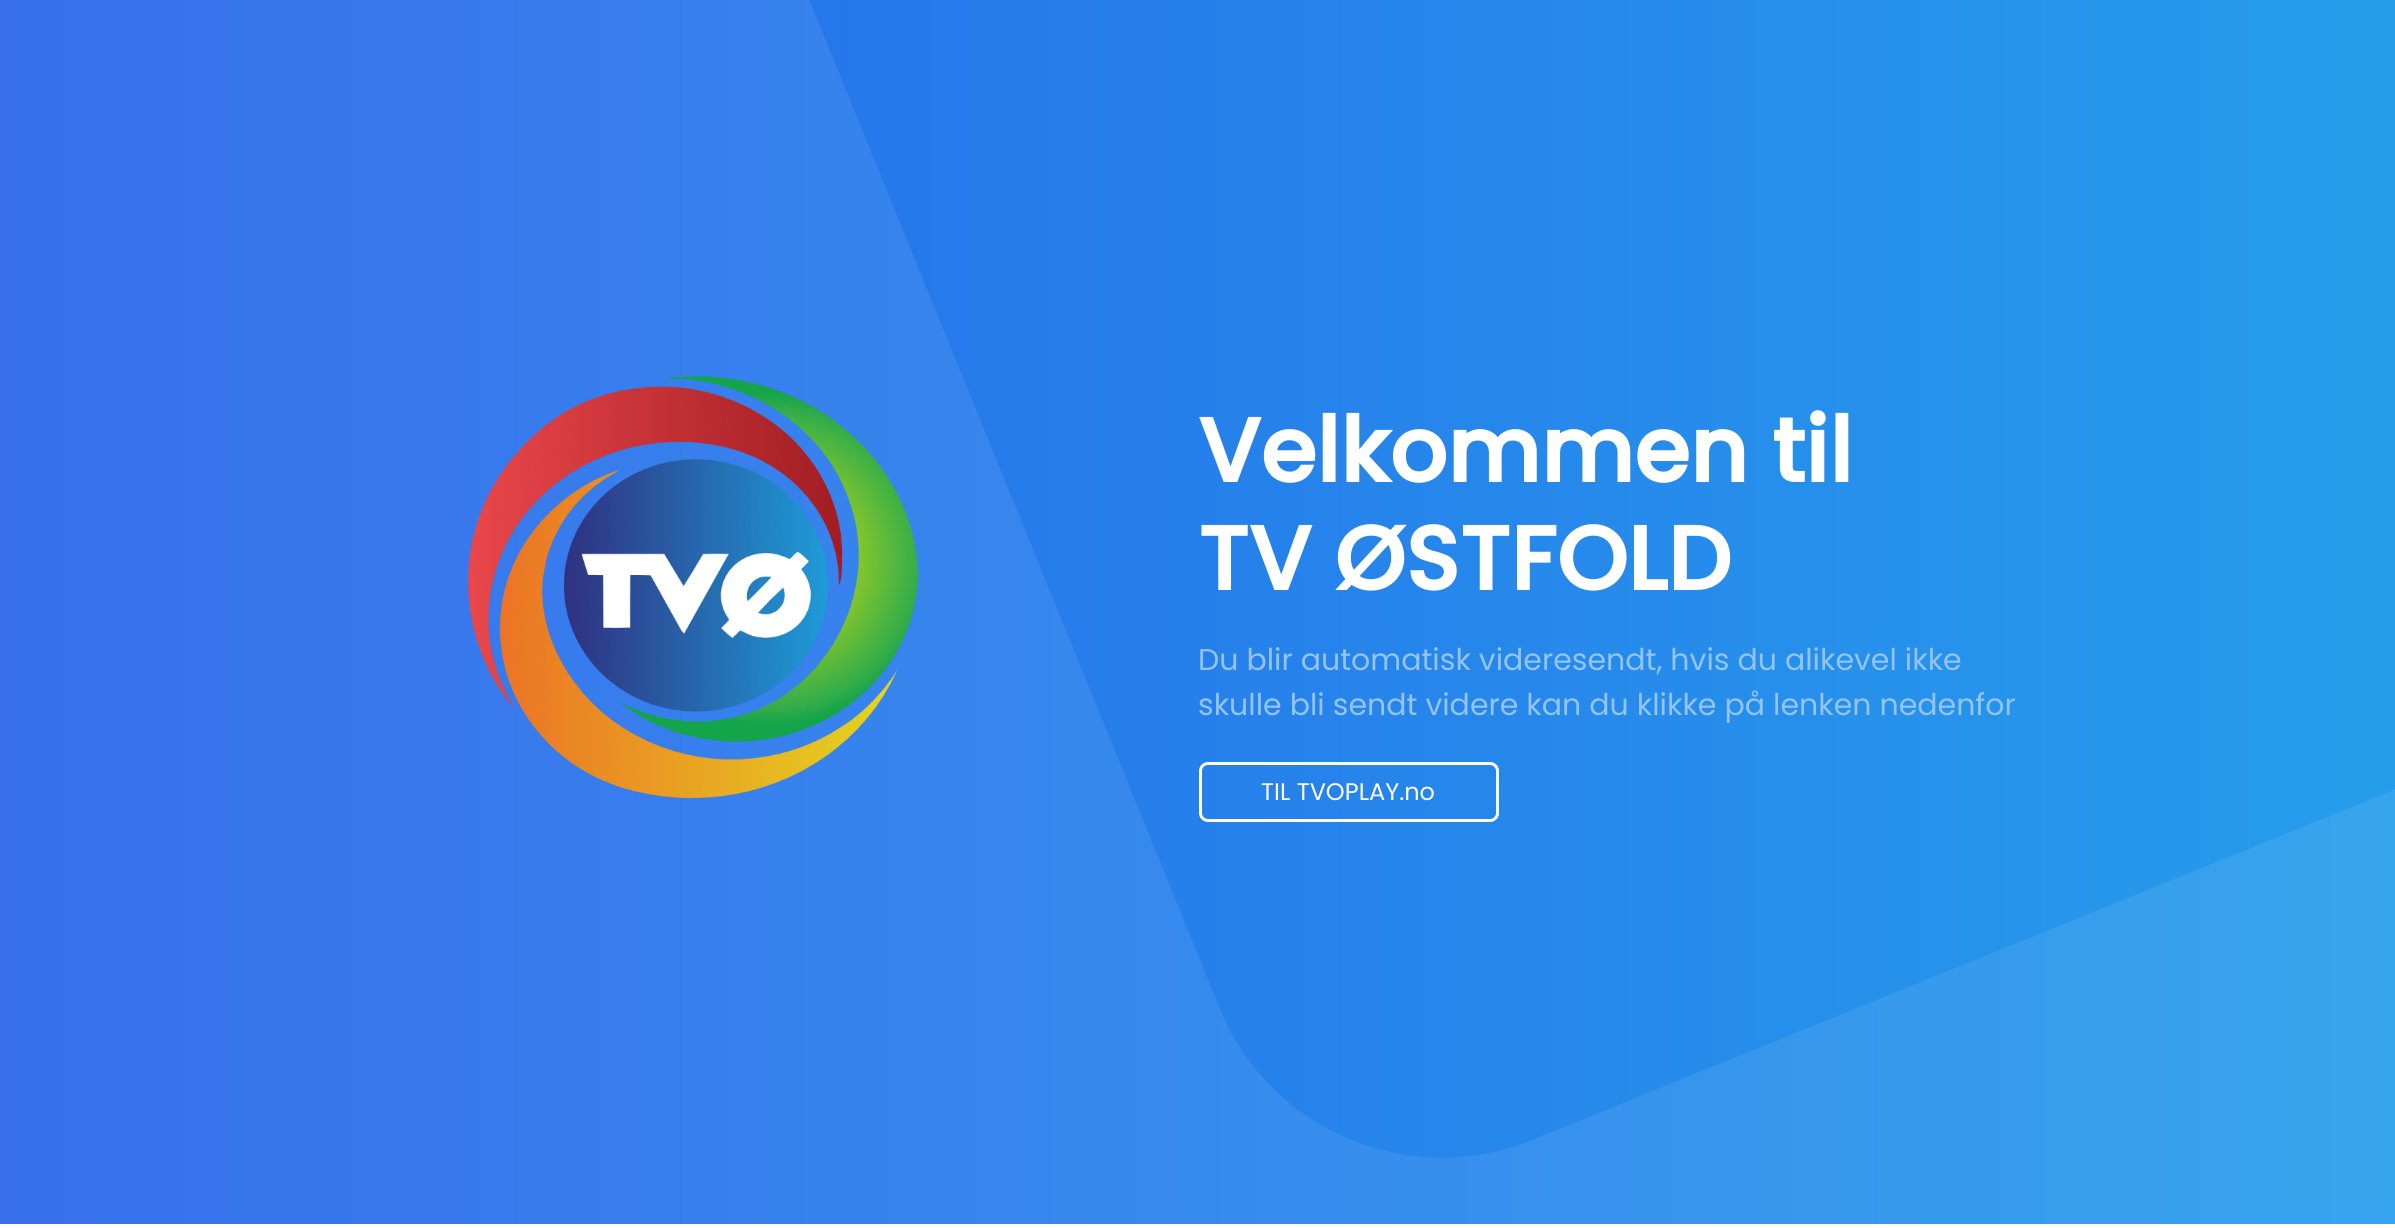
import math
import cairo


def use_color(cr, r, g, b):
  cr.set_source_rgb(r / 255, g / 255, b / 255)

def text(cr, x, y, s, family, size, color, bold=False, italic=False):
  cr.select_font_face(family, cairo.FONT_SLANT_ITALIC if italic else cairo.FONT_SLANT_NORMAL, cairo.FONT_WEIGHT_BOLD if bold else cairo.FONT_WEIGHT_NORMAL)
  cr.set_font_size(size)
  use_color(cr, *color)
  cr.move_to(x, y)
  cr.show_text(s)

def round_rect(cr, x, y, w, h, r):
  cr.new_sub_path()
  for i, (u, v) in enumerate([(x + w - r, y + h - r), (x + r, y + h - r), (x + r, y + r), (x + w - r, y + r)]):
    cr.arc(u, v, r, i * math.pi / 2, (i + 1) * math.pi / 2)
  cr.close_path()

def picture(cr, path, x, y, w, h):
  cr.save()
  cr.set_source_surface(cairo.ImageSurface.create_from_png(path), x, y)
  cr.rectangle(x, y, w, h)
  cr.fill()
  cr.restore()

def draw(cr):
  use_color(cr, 255, 255, 255)
  cr.paint()
  gradient = cairo.LinearGradient(0, 610, 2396, 610)
  gradient.add_color_stop_rgba(0, 0.149, 0.388, 0.922, 1)
  gradient.add_color_stop_rgba(1, 0.149, 0.616, 0.922, 1)
  cr.set_source(gradient)
  cr.rectangle(0, 0, 2395, 1224)
  cr.fill()
  cr.save()
  cr.rectangle(0, 0, 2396, 1224)
  cr.clip()
  cr.set_source_rgba(1, 1, 1, 0.08)
  cr.set_fill_rule(cairo.FILL_RULE_EVEN_ODD)
  cr.new_path()
  cr.move_to(1220, 1009)
  cr.curve_to(1270, 1131, 1410, 1190, 1532, 1140)
  cr.line_to(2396, 789)
  cr.line_to(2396, 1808)
  cr.line_to(0, 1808)
  cr.line_to(0, -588)
  cr.line_to(570, -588)
  cr.close_path()
  cr.fill()
  cr.restore()
  picture(cr, "img_01.png", 468, 376, 450, 422)
  round_rect(cr, 1200.5, 763.5, 297, 57, 7.5)
  use_color(cr, 255, 255, 255)
  cr.set_line_width(3)
  cr.stroke()
  text(cr, 1198, 482, "Velkommen til", "Poppins", 90, (255, 255, 255), bold=True)
  text(cr, 1198, 590, "TV ØSTFOLD", "Poppins", 90, (255, 255, 255), bold=True)
  text(cr, 1198, 670, "Du blir automatisk videresendt, hvis du alikevel ikke", "Poppins", 30, (147, 196, 245))
  text(cr, 1198, 715, "skulle bli sendt videre kan du klikke på lenken nedenfor", "Poppins", 30, (147, 196, 245))
  text(cr, 1261, 800, "TIL TVOPLAY.no", "Poppins", 24, (255, 255, 255))


surface = cairo.ImageSurface(cairo.FORMAT_RGB24, 2395, 1228)
cr = cairo.Context(surface)
options = cairo.FontOptions()
options.set_hint_metrics(cairo.HINT_METRICS_OFF)
options.set_hint_style(cairo.HINT_STYLE_NONE)
cr.set_font_options(options)
cr.set_miter_limit(4)
draw(cr)
surface.write_to_png("out.png")
